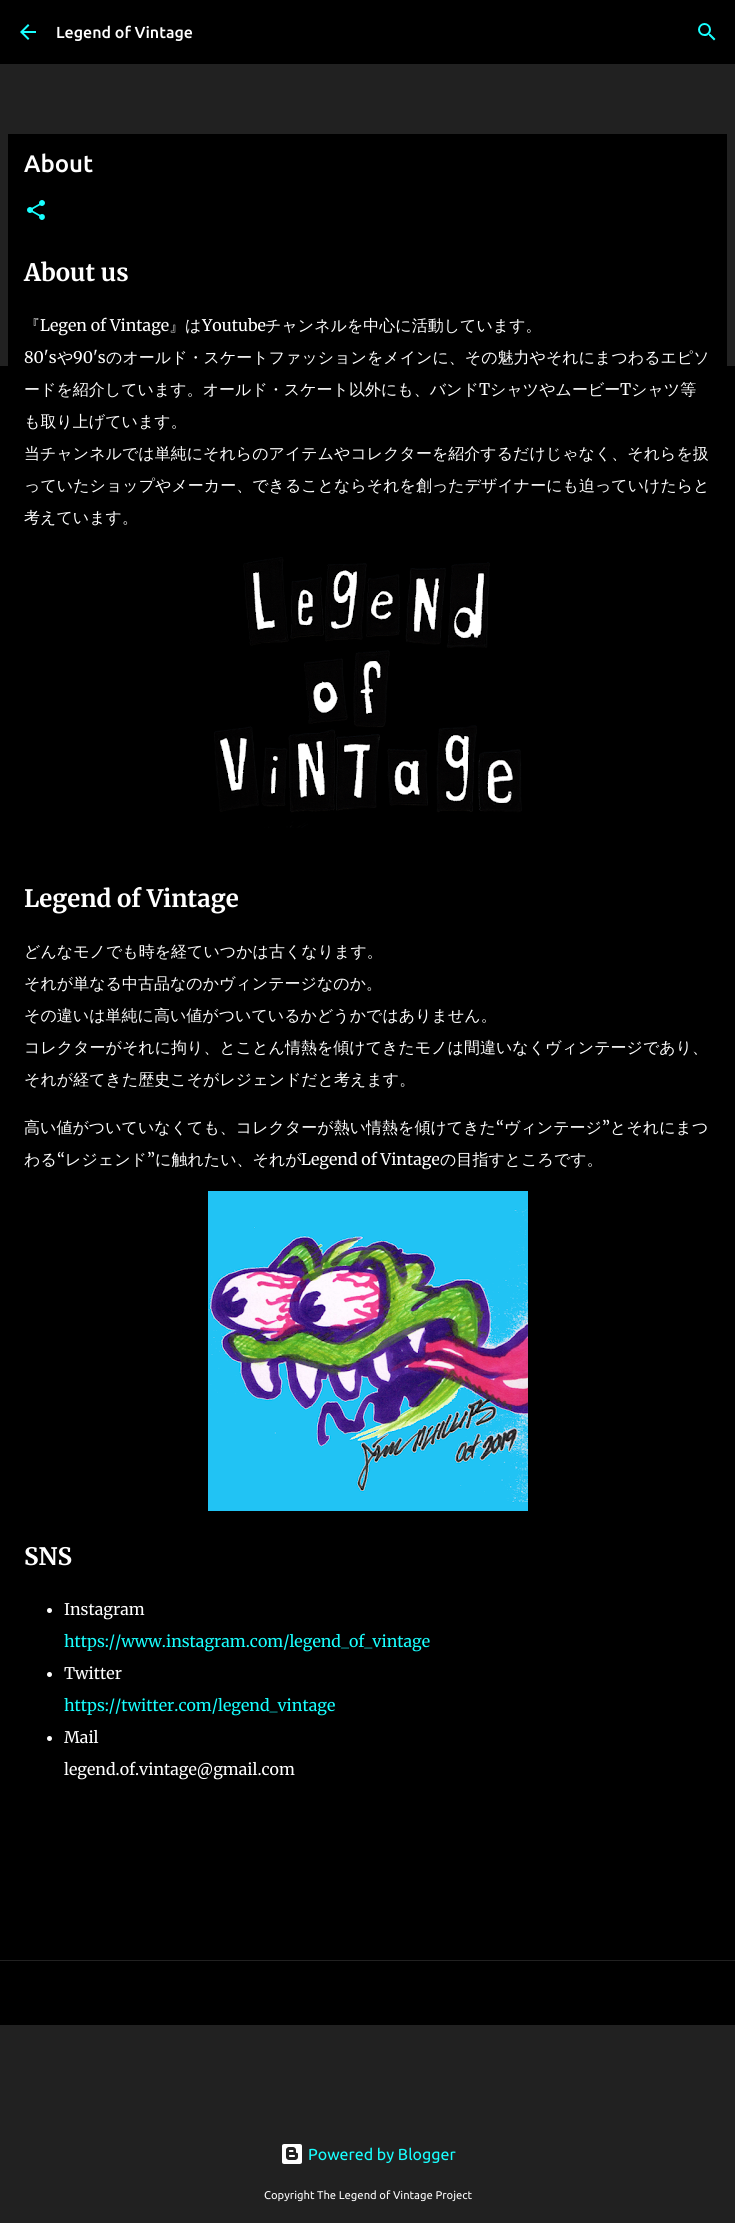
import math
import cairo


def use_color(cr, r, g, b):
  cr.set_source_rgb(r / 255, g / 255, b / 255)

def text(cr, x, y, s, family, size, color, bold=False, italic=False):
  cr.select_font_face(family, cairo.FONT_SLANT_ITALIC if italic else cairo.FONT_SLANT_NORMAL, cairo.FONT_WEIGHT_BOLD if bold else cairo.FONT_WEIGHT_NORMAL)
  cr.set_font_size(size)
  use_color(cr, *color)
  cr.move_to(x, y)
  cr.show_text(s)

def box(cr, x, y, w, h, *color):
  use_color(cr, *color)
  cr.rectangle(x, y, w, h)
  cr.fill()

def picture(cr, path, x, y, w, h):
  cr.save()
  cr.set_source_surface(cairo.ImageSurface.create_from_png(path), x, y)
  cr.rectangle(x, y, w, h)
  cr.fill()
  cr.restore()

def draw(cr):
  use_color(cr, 33, 33, 33)
  cr.paint()
  box(cr, 0, 0, 735, 64, 0, 0, 0)
  picture(cr, "img_01.png", 20, 24, 16, 16)
  picture(cr, "img_02.png", 698, 23, 18, 18)
  box(cr, 0, 366, 735, 1594, 0, 0, 0)
  box(cr, 8, 134, 719, 232, 0, 0, 0)
  picture(cr, "img_03.png", 27, 200, 18, 20)
  picture(cr, "img_04.png", 214, 557, 308, 271)
  picture(cr, "img_05.png", 208, 1191, 320, 320)
  use_color(cr, 255, 255, 255)
  cr.arc(49.5, 1610.5, 2.5, 0, 2 * math.pi)
  cr.fill()
  cr.arc(49.5, 1674.5, 2.5, 0, 2 * math.pi)
  cr.fill()
  cr.arc(49.5, 1738.5, 2.5, 0, 2 * math.pi)
  cr.fill()
  box(cr, 0, 1961, 735, 64, 0, 0, 0)
  picture(cr, "img_06.png", 282, 2144, 20, 20)
  text(cr, 56, 38, "Legend of Vintage", "Ubuntu Medium", 16, (255, 255, 255))
  text(cr, 24, 172, "About", "Ubuntu Medium", 24, (255, 255, 255))
  text(cr, 24, 281, "About us", "Merriweather", 24, (255, 255, 255), bold=True)
  text(cr, 24, 331, "『", "WenQuanYi Zen Hei Medium", 16, (255, 255, 255))
  text(cr, 40, 331, "Legen of Vintage", "Merriweather", 16, (255, 255, 255))
  text(cr, 169, 331, "』は", "WenQuanYi Zen Hei Medium", 16, (255, 255, 255))
  text(cr, 202, 331, "Youtube", "Merriweather", 16, (255, 255, 255))
  text(cr, 265, 331, "チャンネルを中心に活動しています。", "WenQuanYi Zen Hei Medium", 16, (255, 255, 255))
  text(cr, 24, 363, "80's", "Merriweather", 16, (255, 255, 255))
  text(cr, 57, 363, "や", "WenQuanYi Zen Hei Medium", 16, (255, 255, 255))
  text(cr, 73, 363, "90's", "Merriweather", 16, (255, 255, 255))
  text(cr, 106, 363, "のオールド・スケートファッションをメインに、その魅力やそれにまつわるエピソ", "WenQuanYi Zen Hei Medium", 16, (255, 255, 255))
  text(cr, 24, 395, "ードを紹介しています。オールド・スケート以外にも、バンド", "WenQuanYi Zen Hei Medium", 16, (255, 255, 255))
  text(cr, 479, 395, "T", "Merriweather", 16, (255, 255, 255))
  text(cr, 490, 395, "シャツやムービー", "WenQuanYi Zen Hei Medium", 16, (255, 255, 255))
  text(cr, 620, 395, "T", "Merriweather", 16, (255, 255, 255))
  text(cr, 631, 395, "シャツ等", "WenQuanYi Zen Hei Medium", 16, (255, 255, 255))
  text(cr, 24, 427, "も取り上げています。", "WenQuanYi Zen Hei Medium", 16, (255, 255, 255))
  text(cr, 24, 459, "当チャンネルでは単純にそれらのアイテムやコレクターを紹介するだけじゃなく、それらを扱", "WenQuanYi Zen Hei Medium", 16, (255, 255, 255))
  text(cr, 24, 491, "っていたショップやメーカー、できることならそれを創ったデザイナーにも迫っていけたらと", "WenQuanYi Zen Hei Medium", 16, (255, 255, 255))
  text(cr, 24, 523, "考えています。", "WenQuanYi Zen Hei Medium", 16, (255, 255, 255))
  text(cr, 24, 907, "Legend of Vintage", "Merriweather", 24, (255, 255, 255), bold=True)
  text(cr, 24, 957, "どんなモノでも時を経ていつかは古くなります。", "WenQuanYi Zen Hei Medium", 16, (255, 255, 255))
  text(cr, 24, 989, "それが単なる中古品なのかヴィンテージなのか。", "WenQuanYi Zen Hei Medium", 16, (255, 255, 255))
  text(cr, 24, 1021, "その違いは単純に高い値がついているかどうかではありません。", "WenQuanYi Zen Hei Medium", 16, (255, 255, 255))
  text(cr, 24, 1053, "コレクターがそれに拘り、とことん情熱を傾けてきたモノは間違いなくヴィンテージであり、", "WenQuanYi Zen Hei Medium", 16, (255, 255, 255))
  text(cr, 24, 1085, "それが経てきた歴史こそがレジェンドだと考えます。", "WenQuanYi Zen Hei Medium", 16, (255, 255, 255))
  text(cr, 24, 1133, "高い値がついていなくても、コレクターが熱い情熱を傾けてきた", "WenQuanYi Zen Hei Medium", 16, (255, 255, 255))
  text(cr, 496, 1133, "“", "Merriweather", 16, (255, 255, 255))
  text(cr, 504, 1133, "ヴィンテージ", "WenQuanYi Zen Hei Medium", 16, (255, 255, 255))
  text(cr, 602, 1133, "”", "Merriweather", 16, (255, 255, 255))
  text(cr, 610, 1133, "とそれにまつ", "WenQuanYi Zen Hei Medium", 16, (255, 255, 255))
  text(cr, 24, 1165, "わる", "WenQuanYi Zen Hei Medium", 16, (255, 255, 255))
  text(cr, 57, 1165, "“", "Merriweather", 16, (255, 255, 255))
  text(cr, 65, 1165, "レジェンド", "WenQuanYi Zen Hei Medium", 16, (255, 255, 255))
  text(cr, 147, 1165, "”", "Merriweather", 16, (255, 255, 255))
  text(cr, 155, 1165, "に触れたい、それが", "WenQuanYi Zen Hei Medium", 16, (255, 255, 255))
  text(cr, 301, 1165, "Legend of Vintage", "Merriweather", 16, (255, 255, 255))
  text(cr, 440, 1165, "の目指すところです。", "WenQuanYi Zen Hei Medium", 16, (255, 255, 255))
  text(cr, 24, 1565, "SNS", "Merriweather", 24, (255, 255, 255), bold=True)
  text(cr, 64, 1615, "Instagram", "Merriweather", 16, (255, 255, 255))
  text(cr, 64, 1647, "https://www.instagram.com/legend_of_vintage", "Merriweather", 16, (24, 255, 255))
  text(cr, 64, 1679, "Twitter", "Merriweather", 16, (255, 255, 255))
  text(cr, 64, 1711, "https://twitter.com/legend_vintage", "Merriweather", 16, (24, 255, 255))
  text(cr, 64, 1743, "Mail", "Merriweather", 16, (255, 255, 255))
  text(cr, 64, 1775, "legend.of.vintage@gmail.com", "Merriweather", 16, (255, 255, 255))
  text(cr, 308, 2160, "Powered by Blogger", "Ubuntu", 16, (24, 255, 255))
  text(cr, 264, 2199, "Copyright The Legend of Vintage Project", "Ubuntu", 11.25, (255, 255, 255))


surface = cairo.ImageSurface(cairo.FORMAT_RGB24, 735, 2223)
cr = cairo.Context(surface)
options = cairo.FontOptions()
options.set_hint_metrics(cairo.HINT_METRICS_OFF)
options.set_hint_style(cairo.HINT_STYLE_NONE)
cr.set_font_options(options)
cr.set_miter_limit(4)
draw(cr)
surface.write_to_png("out.png")
